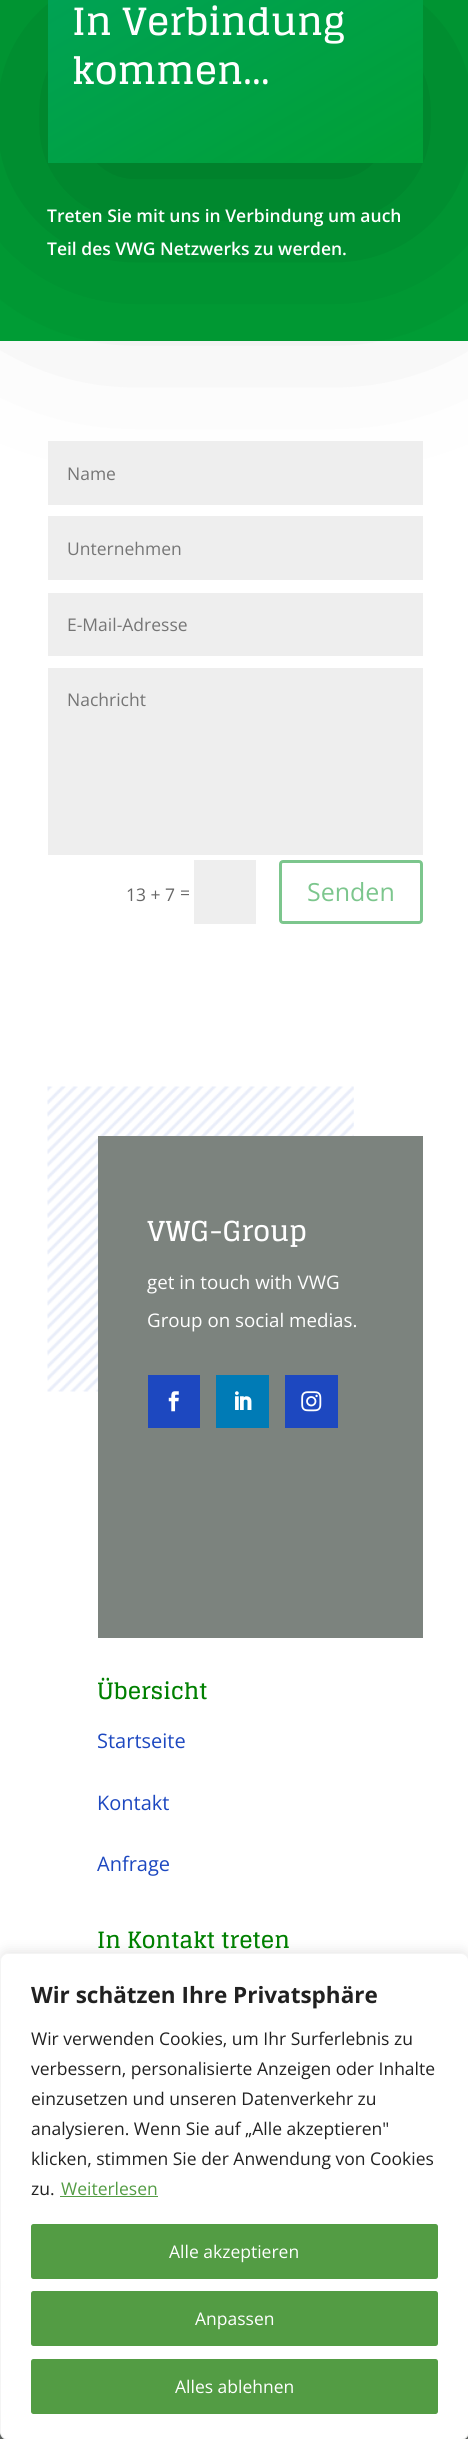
import math
import cairo


def use_color(cr, r, g, b):
  cr.set_source_rgb(r / 255, g / 255, b / 255)

def text(cr, x, y, s, family, size, color, bold=False, italic=False):
  cr.select_font_face(family, cairo.FONT_SLANT_ITALIC if italic else cairo.FONT_SLANT_NORMAL, cairo.FONT_WEIGHT_BOLD if bold else cairo.FONT_WEIGHT_NORMAL)
  cr.set_font_size(size)
  use_color(cr, *color)
  cr.move_to(x, y)
  cr.show_text(s)

def box(cr, x, y, w, h, *color):
  use_color(cr, *color)
  cr.rectangle(x, y, w, h)
  cr.fill()

def round_rect(cr, x, y, w, h, r):
  cr.new_sub_path()
  for i, (u, v) in enumerate([(x + w - r, y + h - r), (x + r, y + h - r), (x + r, y + r), (x + w - r, y + r)]):
    cr.arc(u, v, r, i * math.pi / 2, (i + 1) * math.pi / 2)
  cr.close_path()

def shadow(cr, x, y, w, h, r, blur, alpha):
  cr.push_group_with_content(cairo.CONTENT_ALPHA)
  cr.set_operator(cairo.OPERATOR_SOURCE)
  for i in range(15, -16, -2):
    e = blur * i / 6
    if min(w, h) + 2 * e > 0:
      cr.set_source_rgba(0, 0, 0, alpha * math.erfc((i - 1) / 8.5) / 2)
      round_rect(cr, x - e, y - e, w + 2 * e, h + 2 * e, max(0, min(r + e + blur * .6, min(w, h) / 2 + e)))
      cr.fill()
  cr.mask(cr.pop_group())

def picture(cr, path, x, y, w, h):
  cr.save()
  cr.set_source_surface(cairo.ImageSurface.create_from_png(path), x, y)
  cr.rectangle(x, y, w, h)
  cr.fill()
  cr.restore()

def draw(cr):
  use_color(cr, 0, 160, 54)
  cr.paint()
  box(cr, 0, 341, 468, 1620, 255, 255, 255)
  cr.save()
  cr.set_fill_rule(cairo.FILL_RULE_EVEN_ODD)
  cr.new_path()
  cr.move_to(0, 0)
  cr.line_to(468, 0)
  cr.line_to(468, 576)
  cr.line_to(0, 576)
  cr.close_path()
  cr.move_to(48, -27)
  cr.line_to(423, -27)
  cr.line_to(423, 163)
  cr.line_to(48, 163)
  cr.close_path()
  cr.clip()
  use_color(cr, 0, 0, 0)
  shadow(cr, 60, 35, 350, 165, 0, 125, 0.3)
  cr.restore()
  gradient = cairo.LinearGradient(147, -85, 323, 220)
  gradient.add_color_stop_rgba(0, 0, 0.682, 1, 0.16)
  gradient.add_color_stop_rgba(1, 0, 0.682, 1, 0)
  cr.set_source(gradient)
  cr.rectangle(48, 0, 375, 163)
  cr.fill()
  box(cr, 48, 441, 375, 64, 238, 238, 238)
  box(cr, 48, 516, 375, 64, 238, 238, 238)
  box(cr, 48, 593, 375, 63, 238, 238, 238)
  box(cr, 48, 668, 375, 187, 238, 238, 238)
  box(cr, 194, 860, 62, 64, 238, 238, 238)
  round_rect(cr, 280.5, 861.5, 141, 61, 2.5)
  use_color(cr, 124, 198, 141)
  cr.set_line_width(3)
  cr.stroke()
  picture(cr, "img_01.png", 47, 1086, 307, 306)
  box(cr, 98, 1136, 325, 502, 124, 131, 126)
  box(cr, 148, 1375, 52, 53, 29, 72, 192)
  picture(cr, "img_02.png", 168, 1391, 11, 21)
  box(cr, 216, 1375, 53, 53, 0, 123, 182)
  picture(cr, "img_03.png", 235, 1391, 17, 19)
  box(cr, 285, 1375, 53, 53, 29, 72, 192)
  picture(cr, "img_04.png", 301, 1391, 21, 21)
  box(cr, 0, 2432, 468, 7, 84, 89, 86)
  use_color(cr, 172, 171, 171)
  shadow(cr, 0, 1951, 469, 488, 8, 6, 0.3)
  use_color(cr, 255, 255, 255)
  round_rect(cr, 0.5, 1953.5, 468, 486, 7.5)
  cr.fill_preserve()
  use_color(cr, 244, 244, 244)
  cr.set_line_width(1)
  cr.stroke()
  box(cr, 60, 2196, 98, 1, 83, 156, 68)
  round_rect(cr, 32.5, 2225.5, 404, 52, 1)
  cr.fill_preserve()
  cr.set_line_width(3)
  cr.stroke()
  round_rect(cr, 32.5, 2292.5, 404, 52, 1)
  cr.fill_preserve()
  cr.stroke()
  round_rect(cr, 32.5, 2360.5, 404, 52, 1)
  cr.fill_preserve()
  cr.stroke()
  text(cr, 72, 35, "In Verbindung", "Glegoo", 37.5, (255, 255, 255), bold=True)
  text(cr, 72, 84, "kommen…", "Glegoo", 37.5, (255, 255, 255), bold=True)
  text(cr, 47, 222, "Treten Sie mit uns in Verbindung um auch", "Open Sans SemiBold", 17.5, (255, 255, 255))
  text(cr, 47, 255, "Teil des VWG Netzwerks zu werden.", "Open Sans SemiBold", 17.5, (255, 255, 255))
  text(cr, 67, 480, "Name", "Open Sans", 17.5, (117, 117, 117))
  text(cr, 67, 555, "Unternehmen", "Open Sans", 17.5, (117, 117, 117))
  text(cr, 67, 631, "E-Mail-Adresse", "Open Sans", 17.5, (117, 117, 117))
  text(cr, 67, 706, "Nachricht", "Open Sans", 17.5, (117, 117, 117))
  text(cr, 126, 901, "13 + 7", "Open Sans", 17.5, (102, 102, 102))
  text(cr, 180, 899, "=", "Open Sans", 17.5, (102, 102, 102))
  text(cr, 307, 901, "Senden", "Open Sans", 25, (124, 198, 141))
  text(cr, 147, 1241, "VWG-Group", "Glegoo", 27.5, (255, 255, 255), bold=True)
  text(cr, 147, 1289, "get in touch with VWG", "Open Sans", 18.75, (255, 255, 255))
  text(cr, 147, 1327, "Group on social medias.", "Open Sans", 18.75, (255, 255, 255))
  text(cr, 97, 1699, "Übersicht", "Glegoo", 22.5, (0, 128, 0), bold=True)
  text(cr, 97, 1748, "Startseite", "Open Sans", 20, (29, 72, 192))
  text(cr, 97, 1810, "Kontakt", "Open Sans", 20, (29, 72, 192))
  text(cr, 97, 1871, "Anfrage", "Open Sans", 20, (29, 72, 192))
  text(cr, 97, 1948, "In Kontakt treten", "Glegoo", 22.5, (0, 128, 0), bold=True)
  text(cr, 31, 2003, "Wir schätzen Ihre Privatsphäre", "Open Sans", 22.5, (33, 33, 33), bold=True)
  text(cr, 31, 2045, "Wir verwenden Cookies, um Ihr Surferlebnis zu", "Open Sans", 17.5, (33, 33, 33))
  text(cr, 31, 2075, "verbessern, personalisierte Anzeigen oder Inhalte", "Open Sans", 17.5, (33, 33, 33))
  text(cr, 31, 2105, "einzusetzen und unseren Datenverkehr zu", "Open Sans", 17.5, (33, 33, 33))
  text(cr, 31, 2135, "analysieren. Wenn Sie auf „Alle akzeptieren\"", "Open Sans", 17.5, (33, 33, 33))
  text(cr, 31, 2165, "klicken, stimmen Sie der Anwendung von Cookies", "Open Sans", 17.5, (33, 33, 33))
  text(cr, 31, 2195, "zu.", "Open Sans", 17.5, (33, 33, 33))
  text(cr, 61, 2195, "Weiterlesen", "Open Sans", 17.5, (83, 156, 68))
  text(cr, 169, 2258, "Alle akzeptieren", "Open Sans", 17.5, (255, 255, 255))
  text(cr, 195, 2325, "Anpassen", "Open Sans", 17.5, (255, 255, 255))
  text(cr, 175, 2393, "Alles ablehnen", "Open Sans", 17.5, (255, 255, 255))


surface = cairo.ImageSurface(cairo.FORMAT_RGB24, 468, 2439)
cr = cairo.Context(surface)
options = cairo.FontOptions()
options.set_hint_metrics(cairo.HINT_METRICS_OFF)
options.set_hint_style(cairo.HINT_STYLE_NONE)
cr.set_font_options(options)
cr.set_miter_limit(4)
draw(cr)
surface.write_to_png("out.png")
